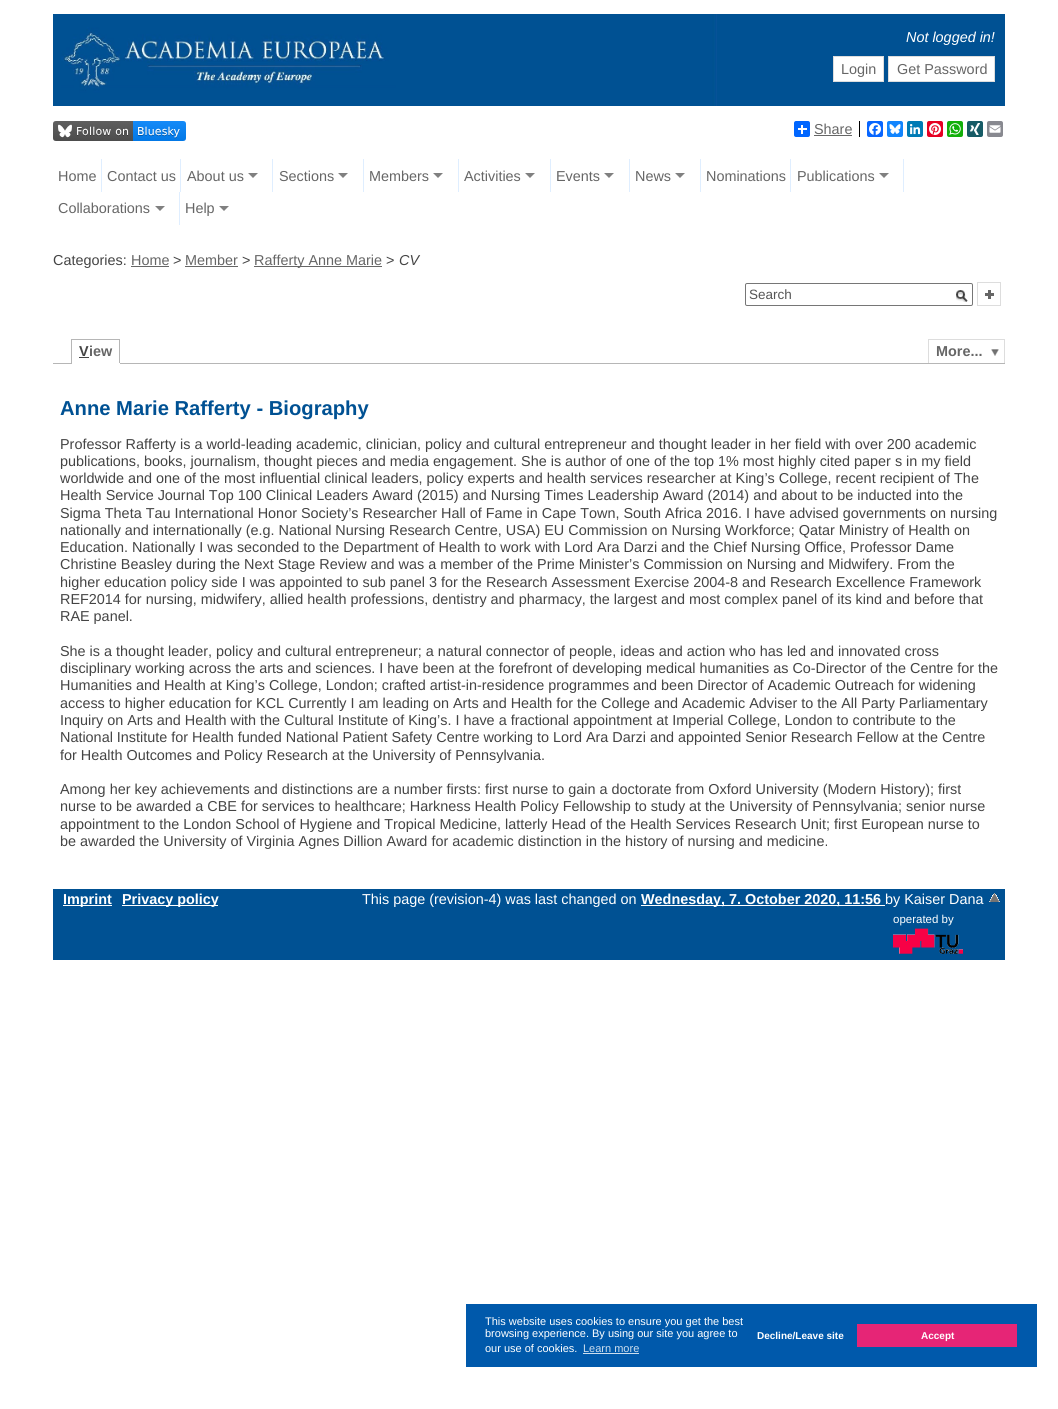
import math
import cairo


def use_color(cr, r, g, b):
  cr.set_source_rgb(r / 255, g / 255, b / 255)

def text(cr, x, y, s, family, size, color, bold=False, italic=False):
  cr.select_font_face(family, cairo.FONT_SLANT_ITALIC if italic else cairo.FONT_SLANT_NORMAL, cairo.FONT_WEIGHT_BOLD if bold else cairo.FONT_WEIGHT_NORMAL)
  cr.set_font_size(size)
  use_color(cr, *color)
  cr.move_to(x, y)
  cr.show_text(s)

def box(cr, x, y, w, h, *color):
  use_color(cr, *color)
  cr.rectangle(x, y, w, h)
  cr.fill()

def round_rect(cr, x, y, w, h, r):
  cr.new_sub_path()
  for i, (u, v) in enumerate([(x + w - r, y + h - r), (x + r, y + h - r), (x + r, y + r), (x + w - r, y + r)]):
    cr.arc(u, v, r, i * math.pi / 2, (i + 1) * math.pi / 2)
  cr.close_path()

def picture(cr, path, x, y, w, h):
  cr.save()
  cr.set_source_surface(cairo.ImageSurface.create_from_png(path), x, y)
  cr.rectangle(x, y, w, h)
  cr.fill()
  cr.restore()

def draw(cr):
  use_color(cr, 255, 255, 255)
  cr.paint()
  box(cr, 53, 14, 952, 92, 0, 81, 147)
  picture(cr, "img_01.png", 61, 14, 656, 92)
  use_color(cr, 255, 255, 255)
  cr.rectangle(833.5, 56.5, 50, 25)
  cr.fill_preserve()
  use_color(cr, 221, 221, 221)
  cr.set_line_width(1)
  cr.stroke()
  use_color(cr, 255, 255, 255)
  cr.rectangle(888.5, 56.5, 106, 25)
  cr.fill_preserve()
  use_color(cr, 221, 221, 221)
  cr.stroke()
  picture(cr, "img_02.png", 53, 121, 133, 20)
  use_color(cr, 1, 102, 255)
  round_rect(cr, 794, 121, 16, 16, 2)
  cr.fill()
  box(cr, 801, 125, 2, 9, 255, 255, 255)
  box(cr, 798, 128, 9, 2, 255, 255, 255)
  box(cr, 814, 135, 38, 1, 102, 102, 102)
  box(cr, 859, 121, 1, 16, 0, 0, 0)
  use_color(cr, 8, 102, 255)
  round_rect(cr, 867, 121, 16, 16, 2)
  cr.fill()
  picture(cr, "img_03.png", 869, 123, 12, 12)
  use_color(cr, 18, 133, 254)
  round_rect(cr, 887, 121, 16, 16, 2)
  cr.fill()
  picture(cr, "img_04.png", 889, 124, 12, 10)
  use_color(cr, 0, 123, 181)
  round_rect(cr, 907, 121, 16, 16, 2)
  cr.fill()
  picture(cr, "img_05.png", 910, 124, 11, 11)
  use_color(cr, 230, 0, 35)
  round_rect(cr, 927, 121, 16, 16, 2)
  cr.fill()
  picture(cr, "img_06.png", 929, 123, 12, 12)
  use_color(cr, 18, 175, 10)
  round_rect(cr, 947, 121, 16, 16, 2)
  cr.fill()
  picture(cr, "img_07.png", 949, 123, 12, 12)
  use_color(cr, 22, 91, 102)
  round_rect(cr, 967, 121, 16, 16, 2)
  cr.fill()
  picture(cr, "img_08.png", 969, 123, 12, 12)
  use_color(cr, 136, 137, 144)
  round_rect(cr, 987, 121, 16, 16, 2)
  cr.fill()
  picture(cr, "img_09.png", 989, 125, 12, 8)
  box(cr, 101, 159, 1, 33, 223, 238, 255)
  box(cr, 180, 159, 1, 33, 223, 238, 255)
  box(cr, 272, 159, 1, 33, 223, 238, 255)
  use_color(cr, 128, 128, 128)
  cr.new_path()
  cr.move_to(248, 173)
  cr.line_to(258, 173)
  cr.line_to(253, 178)
  cr.close_path()
  cr.fill()
  box(cr, 363, 159, 1, 33, 223, 238, 255)
  use_color(cr, 128, 128, 128)
  cr.new_path()
  cr.move_to(338, 173)
  cr.line_to(348, 173)
  cr.line_to(343, 178)
  cr.close_path()
  cr.fill()
  box(cr, 458, 159, 1, 33, 223, 238, 255)
  use_color(cr, 128, 128, 128)
  cr.new_path()
  cr.move_to(433, 173)
  cr.line_to(443, 173)
  cr.line_to(438, 178)
  cr.close_path()
  cr.fill()
  box(cr, 550, 159, 1, 33, 223, 238, 255)
  use_color(cr, 128, 128, 128)
  cr.new_path()
  cr.move_to(525, 173)
  cr.line_to(535, 173)
  cr.line_to(530, 178)
  cr.close_path()
  cr.fill()
  box(cr, 629, 159, 1, 33, 223, 238, 255)
  use_color(cr, 128, 128, 128)
  cr.new_path()
  cr.move_to(604, 173)
  cr.line_to(614, 173)
  cr.line_to(609, 178)
  cr.close_path()
  cr.fill()
  box(cr, 700, 159, 1, 33, 223, 238, 255)
  use_color(cr, 128, 128, 128)
  cr.new_path()
  cr.move_to(675, 173)
  cr.line_to(685, 173)
  cr.line_to(680, 178)
  cr.close_path()
  cr.fill()
  box(cr, 790, 159, 1, 33, 223, 238, 255)
  box(cr, 903, 159, 1, 33, 223, 238, 255)
  use_color(cr, 128, 128, 128)
  cr.new_path()
  cr.move_to(879, 173)
  cr.line_to(889, 173)
  cr.line_to(884, 178)
  cr.close_path()
  cr.fill()
  box(cr, 179, 192, 1, 33, 223, 238, 255)
  use_color(cr, 128, 128, 128)
  cr.new_path()
  cr.move_to(155, 206)
  cr.line_to(165, 206)
  cr.line_to(160, 211)
  cr.close_path()
  cr.fill()
  cr.new_path()
  cr.move_to(219, 206)
  cr.line_to(229, 206)
  cr.line_to(224, 211)
  cr.close_path()
  cr.fill()
  box(cr, 131, 266, 38, 1, 102, 102, 102)
  box(cr, 185, 266, 53, 1, 102, 102, 102)
  box(cr, 254, 266, 128, 1, 102, 102, 102)
  round_rect(cr, 745.5, 283.5, 227, 22, 1.5)
  use_color(cr, 118, 118, 118)
  cr.stroke()
  picture(cr, "img_10.png", 956, 290, 12, 12)
  cr.rectangle(977.5, 282.5, 23, 23)
  use_color(cr, 221, 221, 221)
  cr.stroke()
  picture(cr, "img_11.png", 985, 290, 9, 9)
  box(cr, 71, 339, 49, 1, 182, 182, 182)
  box(cr, 53, 363, 952, 1, 182, 182, 182)
  box(cr, 119, 339, 1, 25, 182, 182, 182)
  box(cr, 71, 363, 49, 1, 255, 255, 255)
  box(cr, 71, 339, 1, 25, 182, 182, 182)
  box(cr, 79, 357, 10, 1, 68, 68, 68)
  picture(cr, "img_12.png", 991, 349, 8, 7)
  box(cr, 928, 339, 77, 1, 221, 221, 221)
  box(cr, 1004, 339, 1, 24, 221, 221, 221)
  box(cr, 928, 339, 1, 24, 221, 221, 221)
  box(cr, 53, 889, 952, 71, 0, 81, 147)
  box(cr, 63, 905, 49, 1, 255, 255, 255)
  box(cr, 122, 905, 96, 1, 255, 255, 255)
  box(cr, 641, 905, 244, 1, 255, 255, 255)
  picture(cr, "img_13.png", 989, 893, 11, 9)
  picture(cr, "img_14.png", 893, 928, 70, 26)
  box(cr, 466, 1304, 571, 63, 0, 89, 171)
  box(cr, 583, 1353, 56, 1, 204, 222, 238)
  box(cr, 857, 1324, 160, 23, 230, 37, 118)
  text(cr, 906, 42, "Not logged in!", "Liberation Sans", 14.4, (255, 255, 255), italic=True)
  text(cr, 841, 74, "Login", "Liberation Sans", 14.4, (102, 102, 102))
  text(cr, 897, 74, "Get Password", "Liberation Sans", 14.4, (102, 102, 102))
  text(cr, 814, 134, "Share", "Liberation Sans", 14.4, (102, 102, 102))
  text(cr, 58, 181, "Home", "Liberation Sans", 14.4, (102, 102, 102))
  text(cr, 107, 181, "Contact us", "Liberation Sans", 14.4, (102, 102, 102))
  text(cr, 187, 181, "About us", "Liberation Sans", 14.4, (102, 102, 102))
  text(cr, 279, 181, "Sections", "Liberation Sans", 14.4, (102, 102, 102))
  text(cr, 369, 181, "Members", "Liberation Sans", 14.4, (102, 102, 102))
  text(cr, 464, 181, "Activities", "Liberation Sans", 14.4, (102, 102, 102))
  text(cr, 556, 181, "Events", "Liberation Sans", 14.4, (102, 102, 102))
  text(cr, 635, 181, "News", "Liberation Sans", 14.4, (102, 102, 102))
  text(cr, 706, 181, "Nominations", "Liberation Sans", 14.4, (102, 102, 102))
  text(cr, 797, 181, "Publications", "Liberation Sans", 14.4, (102, 102, 102))
  text(cr, 58, 213, "Collaborations", "Liberation Sans", 14.4, (102, 102, 102))
  text(cr, 185, 213, "Help", "Liberation Sans", 14.4, (102, 102, 102))
  text(cr, 53, 265, "Categories:", "Liberation Sans", 14.4, (68, 68, 68))
  text(cr, 131, 265, "Home", "Liberation Sans", 14.4, (102, 102, 102))
  text(cr, 173, 265, ">", "Liberation Sans", 14.4, (68, 68, 68))
  text(cr, 185, 265, "Member", "Liberation Sans", 14.4, (102, 102, 102))
  text(cr, 242, 265, ">", "Liberation Sans", 14.4, (68, 68, 68))
  text(cr, 254, 265, "Rafferty Anne Marie", "Liberation Sans", 14.4, (102, 102, 102))
  text(cr, 386, 265, ">", "Liberation Sans", 14.4, (68, 68, 68))
  text(cr, 399, 265, "CV", "Liberation Sans", 14.4, (68, 68, 68), italic=True)
  text(cr, 749, 299, "Search", "Liberation Sans", 13.5, (85, 85, 85))
  text(cr, 79, 356, "V", "Liberation Sans", 14.4, (68, 68, 68), bold=True)
  text(cr, 89, 356, "iew", "Liberation Sans", 14.4, (102, 102, 102), bold=True)
  text(cr, 936, 356, "More...", "Liberation Sans", 14.4, (102, 102, 102), bold=True)
  text(cr, 60, 415, "Anne Marie Rafferty - Biography", "Liberation Sans", 20.2, (0, 81, 147), bold=True)
  text(cr, 60, 449, "Professor Rafferty is a world-leading academic, clinician, policy and cultural entrepreneur and thought leader in her field with over 200 academic", "Liberation Sans", 14.4, (68, 68, 68))
  text(cr, 60, 466, "publications, books, journalism, thought pieces and media engagement. She is author of one of the top 1% most highly cited paper s in my field", "Liberation Sans", 14.4, (68, 68, 68))
  text(cr, 60, 483, "worldwide and one of the most influential clinical leaders, policy experts and health services researcher at King’s College, recent recipient of The", "Liberation Sans", 14.4, (68, 68, 68))
  text(cr, 60, 500, "Health Service Journal Top 100 Clinical Leaders Award (2015) and Nursing Times Leadership Award (2014) and about to be inducted into the", "Liberation Sans", 14.4, (68, 68, 68))
  text(cr, 60, 518, "Sigma Theta Tau International Honor Society’s Researcher Hall of Fame in Cape Town, South Africa 2016. I have advised governments on nursing", "Liberation Sans", 14.4, (68, 68, 68))
  text(cr, 60, 535, "nationally and internationally (e.g. National Nursing Research Centre, USA) EU Commission on Nursing Workforce; Qatar Ministry of Health on", "Liberation Sans", 14.4, (68, 68, 68))
  text(cr, 60, 552, "Education. Nationally I was seconded to the Department of Health to work with Lord Ara Darzi and the Chief Nursing Office, Professor Dame", "Liberation Sans", 14.4, (68, 68, 68))
  text(cr, 60, 569, "Christine Beasley during the Next Stage Review and was a member of the Prime Minister’s Commission on Nursing and Midwifery. From the", "Liberation Sans", 14.4, (68, 68, 68))
  text(cr, 60, 587, "higher education policy side I was appointed to sub panel 3 for the Research Assessment Exercise 2004-8 and Research Excellence Framework", "Liberation Sans", 14.4, (68, 68, 68))
  text(cr, 60, 604, "REF2014 for nursing, midwifery, allied health professions, dentistry and pharmacy, the largest and most complex panel of its kind and before that", "Liberation Sans", 14.4, (68, 68, 68))
  text(cr, 60, 621, "RAE panel.", "Liberation Sans", 14.4, (68, 68, 68))
  text(cr, 60, 656, "She is a thought leader, policy and cultural entrepreneur; a natural connector of people, ideas and action who has led and innovated cross", "Liberation Sans", 14.4, (68, 68, 68))
  text(cr, 60, 673, "disciplinary working across the arts and sciences. I have been at the forefront of developing medical humanities as Co-Director of the Centre for the", "Liberation Sans", 14.4, (68, 68, 68))
  text(cr, 60, 690, "Humanities and Health at King’s College, London; crafted artist-in-residence programmes and been Director of Academic Outreach for widening", "Liberation Sans", 14.4, (68, 68, 68))
  text(cr, 60, 708, "access to higher education for KCL Currently I am leading on Arts and Health for the College and Academic Adviser to the All Party Parliamentary", "Liberation Sans", 14.4, (68, 68, 68))
  text(cr, 60, 725, "Inquiry on Arts and Health with the Cultural Institute of King’s. I have a fractional appointment at Imperial College, London to contribute to the", "Liberation Sans", 14.4, (68, 68, 68))
  text(cr, 60, 742, "National Institute for Health funded National Patient Safety Centre working to Lord Ara Darzi and appointed Senior Research Fellow at the Centre", "Liberation Sans", 14.4, (68, 68, 68))
  text(cr, 60, 760, "for Health Outcomes and Policy Research at the University of Pennsylvania.", "Liberation Sans", 14.4, (68, 68, 68))
  text(cr, 60, 794, "Among her key achievements and distinctions are a number firsts: first nurse to gain a doctorate from Oxford University (Modern History); first", "Liberation Sans", 14.4, (68, 68, 68))
  text(cr, 60, 811, "nurse to be awarded a CBE for services to healthcare; Harkness Health Policy Fellowship to study at the University of Pennsylvania; senior nurse", "Liberation Sans", 14.4, (68, 68, 68))
  text(cr, 60, 829, "appointment to the London School of Hygiene and Tropical Medicine, latterly Head of the Health Services Research Unit; first European nurse to", "Liberation Sans", 14.4, (68, 68, 68))
  text(cr, 60, 846, "be awarded the University of Virginia Agnes Dillion Award for academic distinction in the history of nursing and medicine.", "Liberation Sans", 14.4, (68, 68, 68))
  text(cr, 63, 904, "Imprint", "Liberation Sans", 14.4, (255, 255, 255), bold=True)
  text(cr, 122, 904, "Privacy policy", "Liberation Sans", 14.4, (255, 255, 255), bold=True)
  text(cr, 362, 904, "This page (revision-4) was last changed on", "Liberation Sans", 14.4, (255, 255, 255))
  text(cr, 641, 904, "Wednesday, 7. October 2020, 11:56", "Liberation Sans", 14.4, (255, 255, 255), bold=True)
  text(cr, 885, 904, "by Kaiser Dana", "Liberation Sans", 14.4, (255, 255, 255))
  text(cr, 893, 923, "operated by", "Liberation Sans", 11.5, (255, 255, 255))
  text(cr, 485, 1325, "This website uses cookies to ensure you get the best", "Liberation Sans", 11, (255, 255, 255))
  text(cr, 485, 1337, "browsing experience. By using our site you agree to", "Liberation Sans", 11, (255, 255, 255))
  text(cr, 485, 1352, "our use of cookies.", "Liberation Sans", 11, (255, 255, 255))
  text(cr, 583, 1352, "Learn more", "Liberation Sans", 11, (204, 222, 238))
  text(cr, 757, 1339, "Decline/Leave site", "Liberation Sans", 10, (255, 255, 255), bold=True)
  text(cr, 921, 1339, "Accept", "Liberation Sans", 10, (255, 255, 255), bold=True)


surface = cairo.ImageSurface(cairo.FORMAT_RGB24, 1058, 1409)
cr = cairo.Context(surface)
options = cairo.FontOptions()
options.set_hint_metrics(cairo.HINT_METRICS_OFF)
options.set_hint_style(cairo.HINT_STYLE_NONE)
cr.set_font_options(options)
cr.set_miter_limit(4)
draw(cr)
surface.write_to_png("out.png")
